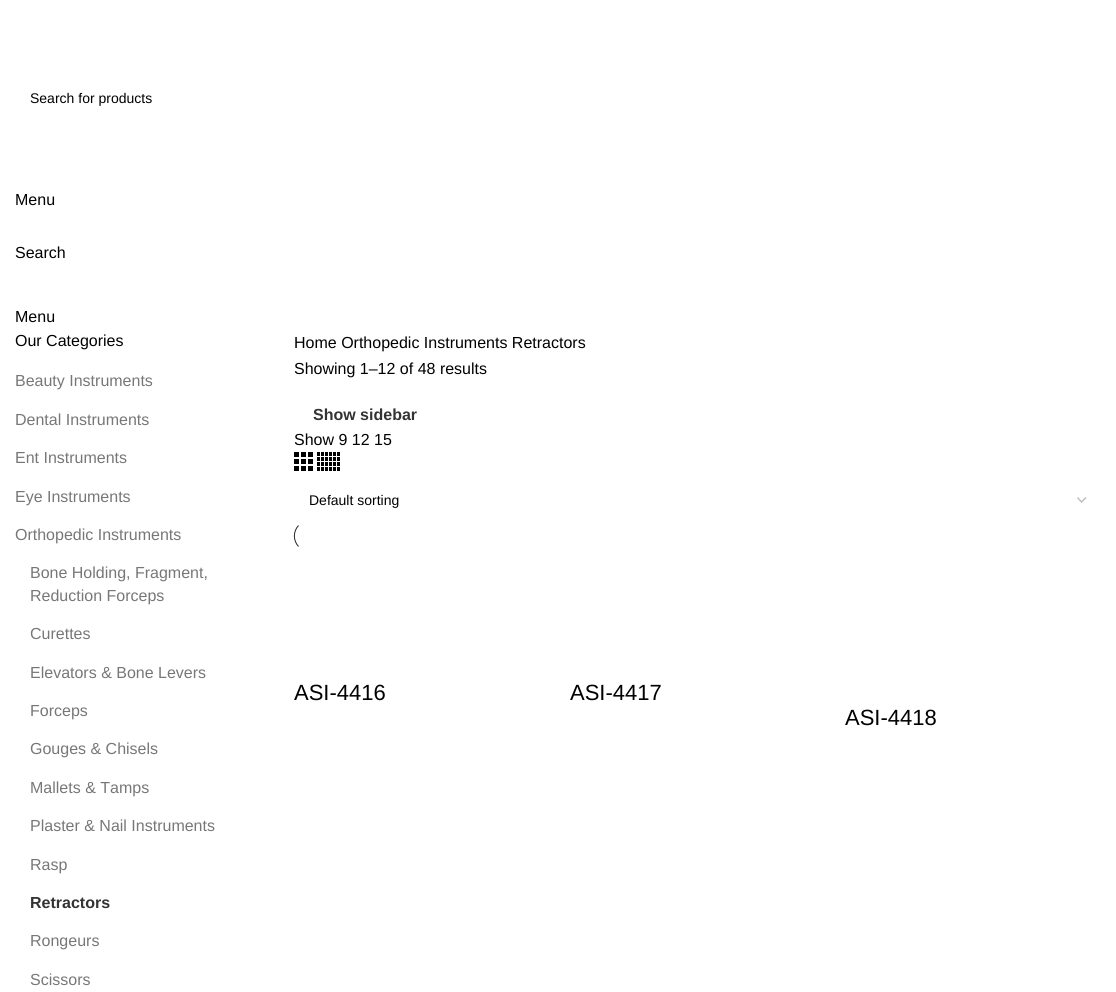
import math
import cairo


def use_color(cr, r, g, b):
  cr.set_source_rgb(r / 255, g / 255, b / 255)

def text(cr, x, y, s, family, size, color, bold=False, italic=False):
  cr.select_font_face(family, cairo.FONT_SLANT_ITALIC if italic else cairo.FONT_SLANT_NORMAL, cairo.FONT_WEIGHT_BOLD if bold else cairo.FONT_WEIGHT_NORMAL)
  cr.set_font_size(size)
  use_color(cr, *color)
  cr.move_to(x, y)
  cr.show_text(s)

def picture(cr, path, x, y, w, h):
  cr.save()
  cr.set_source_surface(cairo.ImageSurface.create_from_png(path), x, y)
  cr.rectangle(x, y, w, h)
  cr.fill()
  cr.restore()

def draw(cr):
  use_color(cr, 255, 255, 255)
  cr.paint()
  picture(cr, "img_01.png", 294, 452, 19, 19)
  picture(cr, "img_02.png", 317, 452, 23, 19)
  cr.new_path()
  cr.move_to(1077.5, 497.5)
  cr.line_to(1081.5, 502)
  cr.line_to(1086, 497.5)
  use_color(cr, 187, 187, 187)
  cr.set_line_width(1.4)
  cr.stroke()
  cr.new_path()
  cr.move_to(298.5, 546.5)
  cr.curve_to(293, 540.5, 293, 531.5, 298.5, 525.5)
  use_color(cr, 36, 36, 36)
  cr.set_line_width(1)
  cr.stroke()
  text(cr, 30, 103, "Search for products", "Liberation Sans", 14, (0, 0, 0))
  text(cr, 15, 205, "Menu", "Liberation Sans", 16, (0, 0, 0))
  text(cr, 15, 258, "Search", "Liberation Sans", 16, (0, 0, 0))
  text(cr, 15, 322, "Menu", "Liberation Sans", 16, (0, 0, 0))
  text(cr, 15, 346, "Our Categories", "Liberation Sans", 16, (0, 0, 0))
  text(cr, 15, 386, "Beauty Instruments", "Liberation Sans", 16, (119, 119, 119))
  text(cr, 15, 425, "Dental Instruments", "Liberation Sans", 16, (119, 119, 119))
  text(cr, 15, 463, "Ent Instruments", "Liberation Sans", 16, (119, 119, 119))
  text(cr, 15, 502, "Eye Instruments", "Liberation Sans", 16, (119, 119, 119))
  text(cr, 15, 540, "Orthopedic Instruments", "Liberation Sans", 16, (119, 119, 119))
  text(cr, 30, 578, "Bone Holding, Fragment,", "Liberation Sans", 16, (119, 119, 119))
  text(cr, 30, 601, "Reduction Forceps", "Liberation Sans", 16, (119, 119, 119))
  text(cr, 30, 639, "Curettes", "Liberation Sans", 16, (119, 119, 119))
  text(cr, 30, 678, "Elevators & Bone Levers", "Liberation Sans", 16, (119, 119, 119))
  text(cr, 30, 716, "Forceps", "Liberation Sans", 16, (119, 119, 119))
  text(cr, 30, 754, "Gouges & Chisels", "Liberation Sans", 16, (119, 119, 119))
  text(cr, 30, 793, "Mallets & Tamps", "Liberation Sans", 16, (119, 119, 119))
  text(cr, 30, 831, "Plaster & Nail Instruments", "Liberation Sans", 16, (119, 119, 119))
  text(cr, 30, 870, "Rasp", "Liberation Sans", 16, (119, 119, 119))
  text(cr, 30, 908, "Retractors", "Liberation Sans", 16, (51, 51, 51), bold=True)
  text(cr, 30, 946, "Rongeurs", "Liberation Sans", 16, (119, 119, 119))
  text(cr, 30, 985, "Scissors", "Liberation Sans", 16, (119, 119, 119))
  text(cr, 294, 348, "Home Orthopedic Instruments Retractors", "Liberation Sans", 16, (0, 0, 0))
  text(cr, 294, 374, "Showing 1–12 of 48 results", "Liberation Sans", 16, (0, 0, 0))
  text(cr, 313, 420, "Show sidebar", "Liberation Sans", 16, (51, 51, 51), bold=True)
  text(cr, 294, 445, "Show 9 12 15", "Liberation Sans", 16, (0, 0, 0))
  text(cr, 309, 505, "Default sorting", "Liberation Sans", 14, (0, 0, 0))
  text(cr, 294, 700, "ASI-4416", "Liberation Sans", 22, (0, 0, 0))
  text(cr, 570, 700, "ASI-4417", "Liberation Sans", 22, (0, 0, 0))
  text(cr, 845, 725, "ASI-4418", "Liberation Sans", 22, (0, 0, 0))


surface = cairo.ImageSurface(cairo.FORMAT_RGB24, 1116, 992)
cr = cairo.Context(surface)
options = cairo.FontOptions()
options.set_hint_metrics(cairo.HINT_METRICS_OFF)
options.set_hint_style(cairo.HINT_STYLE_NONE)
cr.set_font_options(options)
cr.set_miter_limit(4)
draw(cr)
surface.write_to_png("out.png")
